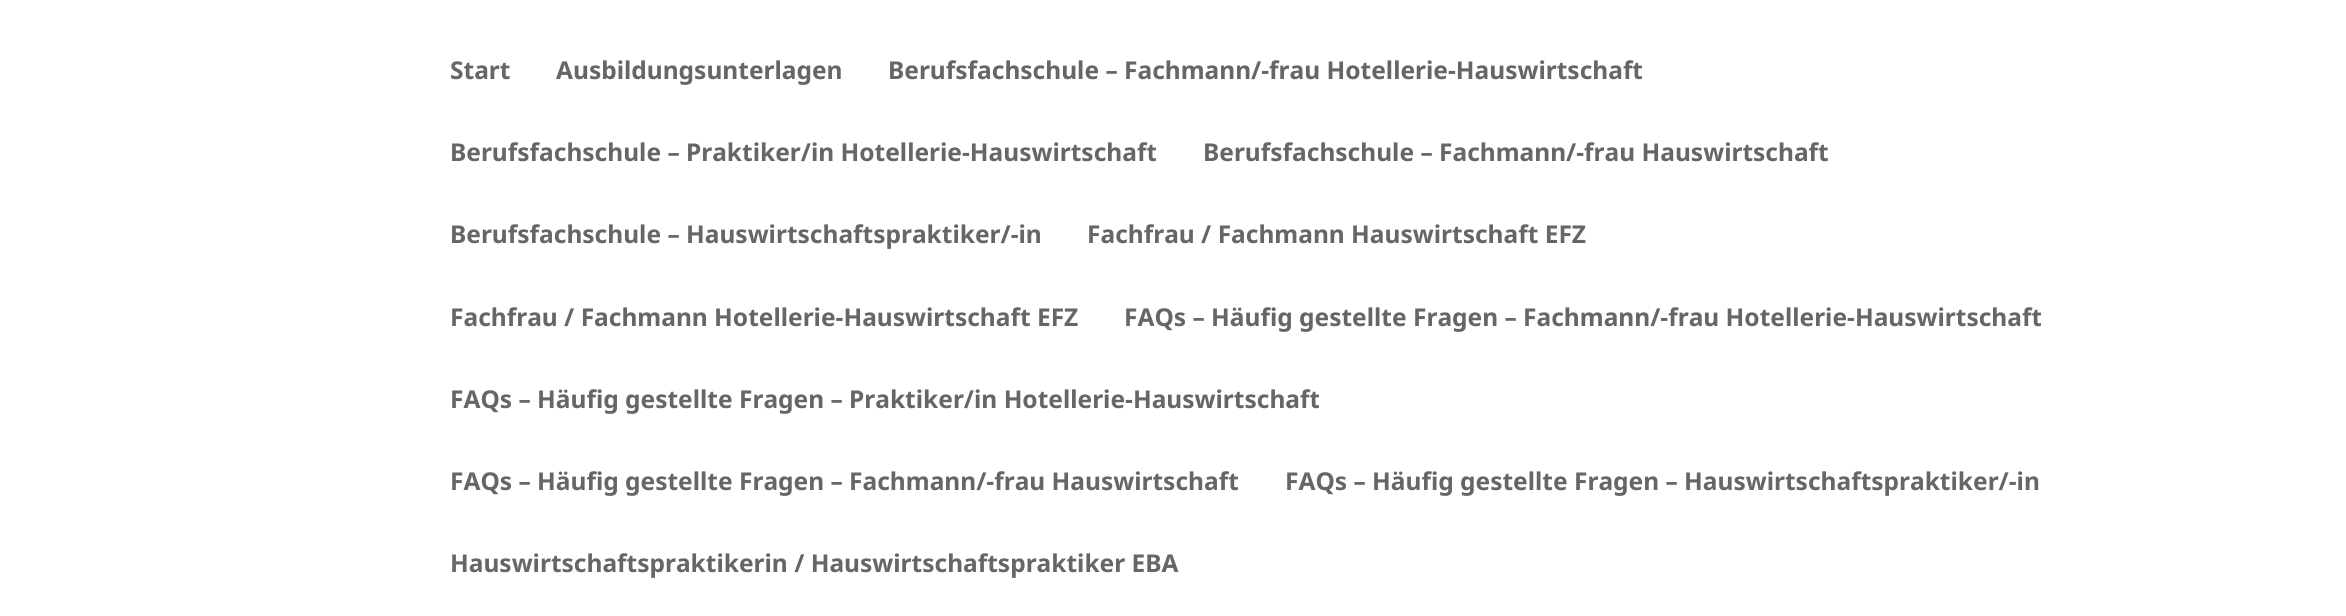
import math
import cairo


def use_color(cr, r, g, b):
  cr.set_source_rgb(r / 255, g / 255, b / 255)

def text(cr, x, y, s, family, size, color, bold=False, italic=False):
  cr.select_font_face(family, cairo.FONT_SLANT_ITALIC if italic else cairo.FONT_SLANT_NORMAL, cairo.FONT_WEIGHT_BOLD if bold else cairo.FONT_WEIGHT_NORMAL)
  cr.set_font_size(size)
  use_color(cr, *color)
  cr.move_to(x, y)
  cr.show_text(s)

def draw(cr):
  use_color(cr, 255, 255, 255)
  cr.paint()
  text(cr, 450, 79, "Start", "Noto Sans", 24.5, (102, 102, 102), bold=True)
  text(cr, 556, 79, "Ausbildungsunterlagen", "Noto Sans", 24.5, (102, 102, 102), bold=True)
  text(cr, 888, 79, "Berufsfachschule – Fachmann/-frau Hotellerie-Hauswirtschaft", "Noto Sans", 24.5, (102, 102, 102), bold=True)
  text(cr, 450, 161, "Berufsfachschule – Praktiker/in Hotellerie-Hauswirtschaft", "Noto Sans", 24.5, (102, 102, 102), bold=True)
  text(cr, 1203, 161, "Berufsfachschule – Fachmann/-frau Hauswirtschaft", "Noto Sans", 24.5, (102, 102, 102), bold=True)
  text(cr, 450, 243, "Berufsfachschule – Hauswirtschaftspraktiker/-in", "Noto Sans", 24.5, (102, 102, 102), bold=True)
  text(cr, 1087, 243, "Fachfrau / Fachmann Hauswirtschaft EFZ", "Noto Sans", 24.5, (102, 102, 102), bold=True)
  text(cr, 450, 326, "Fachfrau / Fachmann Hotellerie-Hauswirtschaft EFZ", "Noto Sans", 24.5, (102, 102, 102), bold=True)
  text(cr, 1124, 326, "FAQs – Häufig gestellte Fragen – Fachmann/-frau Hotellerie-Hauswirtschaft", "Noto Sans", 24.5, (102, 102, 102), bold=True)
  text(cr, 450, 408, "FAQs – Häufig gestellte Fragen – Praktiker/in Hotellerie-Hauswirtschaft", "Noto Sans", 24.5, (102, 102, 102), bold=True)
  text(cr, 450, 490, "FAQs – Häufig gestellte Fragen – Fachmann/-frau Hauswirtschaft", "Noto Sans", 24.5, (102, 102, 102), bold=True)
  text(cr, 1285, 490, "FAQs – Häufig gestellte Fragen – Hauswirtschaftspraktiker/-in", "Noto Sans", 24.5, (102, 102, 102), bold=True)
  text(cr, 450, 572, "Hauswirtschaftspraktikerin / Hauswirtschaftspraktiker EBA", "Noto Sans", 24.5, (102, 102, 102), bold=True)


surface = cairo.ImageSurface(cairo.FORMAT_RGB24, 2346, 616)
cr = cairo.Context(surface)
options = cairo.FontOptions()
options.set_hint_metrics(cairo.HINT_METRICS_OFF)
options.set_hint_style(cairo.HINT_STYLE_NONE)
cr.set_font_options(options)
cr.set_miter_limit(4)
draw(cr)
surface.write_to_png("out.png")
